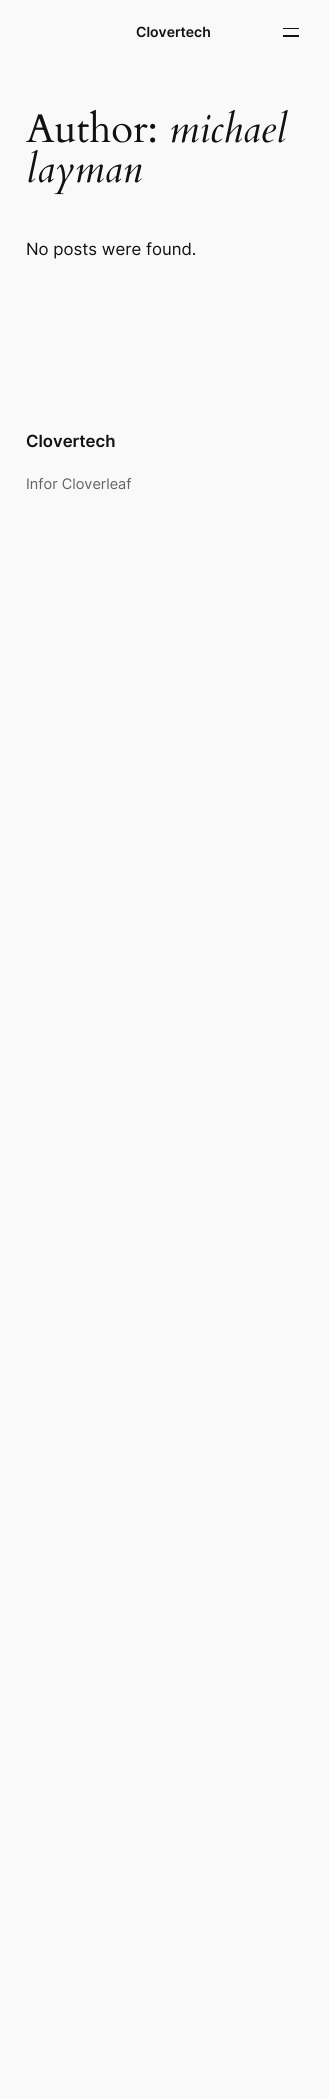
import math
import cairo


def use_color(cr, r, g, b):
  cr.set_source_rgb(r / 255, g / 255, b / 255)

def text(cr, x, y, s, family, size, color, bold=False, italic=False):
  cr.select_font_face(family, cairo.FONT_SLANT_ITALIC if italic else cairo.FONT_SLANT_NORMAL, cairo.FONT_WEIGHT_BOLD if bold else cairo.FONT_WEIGHT_NORMAL)
  cr.set_font_size(size)
  use_color(cr, *color)
  cr.move_to(x, y)
  cr.show_text(s)

def box(cr, x, y, w, h, *color):
  use_color(cr, *color)
  cr.rectangle(x, y, w, h)
  cr.fill()

def picture(cr, path, x, y, w, h):
  cr.save()
  cr.set_source_surface(cairo.ImageSurface.create_from_png(path), x, y)
  cr.rectangle(x, y, w, h)
  cr.fill()
  cr.restore()

def draw(cr):
  use_color(cr, 249, 249, 249)
  cr.paint()
  box(cr, 283, 28, 16, 1, 17, 17, 17)
  box(cr, 283, 35, 16, 2, 17, 17, 17)
  picture(cr, "img_01.png", 26, 109, 130, 34)
  text(cr, 136, 37, "Clovertech", "Inter SemiBold", 14, (17, 17, 17))
  text(cr, 169, 142, "michael", "Cardo", 40, (17, 17, 17), italic=True)
  text(cr, 26, 182, "layman", "Cardo", 40, (17, 17, 17), italic=True)
  text(cr, 26, 255, "No posts were found.", "Inter", 16.75, (17, 17, 17))
  text(cr, 26, 447, "Clovertech", "Inter SemiBold", 16.75, (17, 17, 17))
  text(cr, 26, 489, "Infor Cloverleaf", "Inter", 14.5, (99, 99, 99))


surface = cairo.ImageSurface(cairo.FORMAT_RGB24, 329, 2099)
cr = cairo.Context(surface)
options = cairo.FontOptions()
options.set_hint_metrics(cairo.HINT_METRICS_OFF)
options.set_hint_style(cairo.HINT_STYLE_NONE)
cr.set_font_options(options)
cr.set_miter_limit(4)
draw(cr)
surface.write_to_png("out.png")
